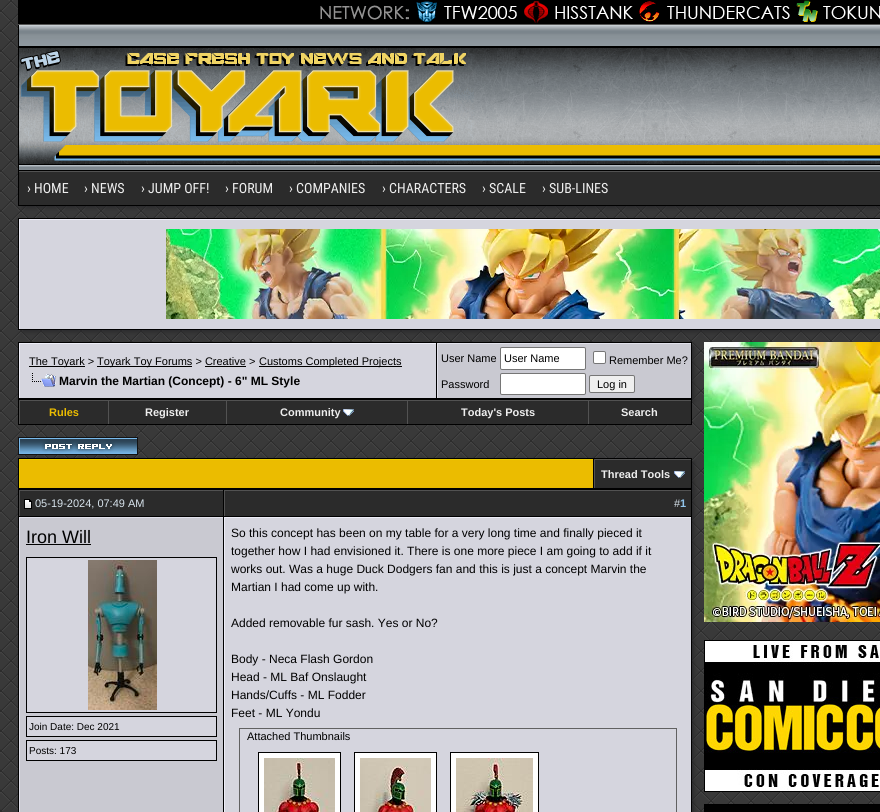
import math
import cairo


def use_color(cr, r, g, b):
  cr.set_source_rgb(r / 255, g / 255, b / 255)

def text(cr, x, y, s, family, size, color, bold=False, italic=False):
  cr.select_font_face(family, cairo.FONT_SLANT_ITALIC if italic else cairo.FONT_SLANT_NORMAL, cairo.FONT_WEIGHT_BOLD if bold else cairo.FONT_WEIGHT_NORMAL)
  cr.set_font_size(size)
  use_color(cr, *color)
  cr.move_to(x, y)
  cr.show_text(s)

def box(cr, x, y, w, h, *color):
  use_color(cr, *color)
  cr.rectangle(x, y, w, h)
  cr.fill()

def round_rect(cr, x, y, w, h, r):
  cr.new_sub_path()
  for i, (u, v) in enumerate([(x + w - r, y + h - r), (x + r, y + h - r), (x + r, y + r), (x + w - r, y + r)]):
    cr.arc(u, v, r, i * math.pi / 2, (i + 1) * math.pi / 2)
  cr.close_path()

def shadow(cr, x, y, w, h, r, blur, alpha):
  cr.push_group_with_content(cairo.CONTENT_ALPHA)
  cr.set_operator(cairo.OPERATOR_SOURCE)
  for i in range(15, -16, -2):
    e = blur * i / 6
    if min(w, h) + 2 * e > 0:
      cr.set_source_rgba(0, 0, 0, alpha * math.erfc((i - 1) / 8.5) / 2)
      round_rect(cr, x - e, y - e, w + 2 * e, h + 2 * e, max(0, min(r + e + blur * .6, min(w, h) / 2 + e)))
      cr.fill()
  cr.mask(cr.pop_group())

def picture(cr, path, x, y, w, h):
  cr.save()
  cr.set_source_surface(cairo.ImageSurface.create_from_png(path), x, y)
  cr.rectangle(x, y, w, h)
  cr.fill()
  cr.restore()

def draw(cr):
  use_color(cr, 255, 255, 255)
  cr.paint()
  picture(cr, "img_01.png", 0, 0, 880, 812)
  box(cr, 18, 0, 862, 24, 0, 0, 0)
  box(cr, 18, 24, 862, 1, 84, 84, 84)
  picture(cr, "img_02.png", 320, 0, 560, 23)
  picture(cr, "img_03.png", 408, 1, 109, 21)
  picture(cr, "img_04.png", 523, 1, 110, 22)
  picture(cr, "img_05.png", 638, 1, 152, 21)
  picture(cr, "img_06.png", 19, 25, 861, 145)
  box(cr, 18, 25, 1, 145, 0, 0, 0)
  picture(cr, "img_07.png", 19, 48, 455, 116)
  use_color(cr, 41, 41, 43)
  shadow(cr, 22, 174, 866, 34, 0, 2.5, 1)
  box(cr, 19, 172, 861, 33, 43, 43, 43)
  box(cr, 19, 171, 861, 1, 82, 82, 82)
  cr.rectangle(18.5, 170.5, 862, 35)
  use_color(cr, 0, 0, 0)
  cr.set_line_width(1)
  cr.stroke()
  use_color(cr, 41, 41, 43)
  shadow(cr, 22, 222, 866, 110, 0, 2.5, 1)
  box(cr, 20, 220, 860, 109, 213, 213, 222)
  cr.save()
  cr.rectangle(19, 219, 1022, 110)
  cr.clip()
  use_color(cr, 237, 237, 247)
  cr.set_fill_rule(cairo.FILL_RULE_EVEN_ODD)
  cr.new_path()
  cr.move_to(-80, 120)
  cr.line_to(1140, 120)
  cr.line_to(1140, 428)
  cr.line_to(-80, 428)
  cr.close_path()
  cr.move_to(20, 220)
  cr.line_to(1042, 220)
  cr.line_to(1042, 330)
  cr.line_to(20, 330)
  cr.close_path()
  cr.fill()
  cr.restore()
  cr.rectangle(18.5, 218.5, 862, 111)
  use_color(cr, 0, 0, 0)
  cr.stroke()
  picture(cr, "img_08.png", 166, 229, 714, 90)
  use_color(cr, 41, 41, 43)
  shadow(cr, 22, 346, 672, 55, 0, 2.5, 1)
  box(cr, 18, 342, 674, 83, 0, 0, 0)
  box(cr, 20, 344, 416, 54, 213, 213, 222)
  box(cr, 19, 343, 417, 1, 237, 237, 247)
  box(cr, 19, 343, 1, 55, 237, 237, 247)
  box(cr, 29, 366, 56, 1, 0, 0, 0)
  box(cr, 97, 366, 95, 1, 0, 0, 0)
  box(cr, 259, 366, 143, 1, 0, 0, 0)
  box(cr, 205, 366, 41, 1, 0, 0, 0)
  picture(cr, "img_09.png", 32, 373, 24, 14)
  box(cr, 438, 344, 253, 54, 201, 201, 209)
  box(cr, 437, 343, 254, 1, 225, 225, 235)
  box(cr, 437, 343, 1, 55, 225, 225, 235)
  use_color(cr, 255, 255, 255)
  round_rect(cr, 500.5, 347.5, 85, 22, 1.5)
  cr.fill_preserve()
  use_color(cr, 118, 118, 118)
  cr.stroke()
  use_color(cr, 255, 255, 255)
  round_rect(cr, 593.5, 351.5, 12, 12, 1.5)
  cr.fill_preserve()
  use_color(cr, 118, 118, 118)
  cr.stroke()
  use_color(cr, 255, 255, 255)
  round_rect(cr, 500.5, 373.5, 85, 21, 1.5)
  cr.fill_preserve()
  use_color(cr, 118, 118, 118)
  cr.stroke()
  use_color(cr, 239, 239, 239)
  round_rect(cr, 589.5, 375.5, 45, 17, 1.5)
  cr.fill_preserve()
  use_color(cr, 118, 118, 118)
  cr.stroke()
  box(cr, 20, 401, 88, 23, 43, 43, 43)
  box(cr, 19, 400, 672, 1, 82, 82, 82)
  box(cr, 19, 400, 1, 24, 82, 82, 82)
  box(cr, 109, 401, 117, 23, 43, 43, 43)
  box(cr, 108, 400, 1, 24, 82, 82, 82)
  box(cr, 227, 401, 180, 23, 43, 43, 43)
  box(cr, 226, 400, 1, 24, 82, 82, 82)
  picture(cr, "img_10.png", 343, 409, 11, 7)
  box(cr, 408, 401, 180, 23, 43, 43, 43)
  box(cr, 407, 400, 1, 24, 82, 82, 82)
  box(cr, 589, 401, 102, 23, 43, 43, 43)
  box(cr, 588, 400, 1, 24, 82, 82, 82)
  use_color(cr, 41, 41, 43)
  shadow(cr, 22, 462, 672, 29, 0, 2.5, 1)
  picture(cr, "img_11.png", 18, 437, 120, 18)
  box(cr, 18, 458, 674, 31, 0, 0, 0)
  box(cr, 20, 460, 573, 28, 235, 188, 0)
  box(cr, 19, 459, 574, 1, 235, 203, 0)
  box(cr, 19, 459, 1, 29, 235, 203, 0)
  box(cr, 595, 460, 96, 28, 43, 43, 43)
  box(cr, 594, 459, 97, 1, 82, 82, 82)
  box(cr, 594, 459, 1, 29, 82, 82, 82)
  picture(cr, "img_10.png", 674, 471, 11, 7)
  use_color(cr, 41, 41, 43)
  shadow(cr, 22, 493, 672, 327, 0, 2.5, 1)
  box(cr, 18, 489, 674, 323, 0, 0, 0)
  box(cr, 20, 491, 203, 25, 43, 43, 43)
  box(cr, 19, 490, 204, 1, 82, 82, 82)
  box(cr, 19, 490, 1, 26, 82, 82, 82)
  picture(cr, "img_12.png", 24, 499, 8, 10)
  box(cr, 225, 491, 466, 25, 43, 43, 43)
  box(cr, 224, 490, 467, 1, 82, 82, 82)
  box(cr, 224, 490, 1, 26, 82, 82, 82)
  box(cr, 20, 518, 203, 294, 201, 201, 209)
  box(cr, 19, 517, 204, 1, 225, 225, 235)
  box(cr, 19, 517, 1, 295, 225, 225, 235)
  box(cr, 26, 544, 65, 1, 0, 0, 0)
  use_color(cr, 213, 213, 222)
  cr.rectangle(26.5, 557.5, 190, 155)
  cr.fill_preserve()
  use_color(cr, 0, 0, 0)
  cr.stroke()
  picture(cr, "img_13.png", 88, 560, 69, 150)
  use_color(cr, 213, 213, 222)
  cr.rectangle(26.5, 716.5, 190, 20)
  cr.fill_preserve()
  use_color(cr, 0, 0, 0)
  cr.stroke()
  use_color(cr, 213, 213, 222)
  cr.rectangle(26.5, 740.5, 190, 20)
  cr.fill_preserve()
  use_color(cr, 0, 0, 0)
  cr.stroke()
  box(cr, 225, 518, 466, 294, 213, 213, 222)
  box(cr, 224, 517, 467, 1, 237, 237, 247)
  box(cr, 224, 517, 1, 295, 237, 237, 247)
  cr.rectangle(239.5, 728.5, 437, 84)
  use_color(cr, 97, 97, 97)
  cr.stroke()
  use_color(cr, 255, 255, 255)
  cr.rectangle(258.5, 752.5, 82, 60)
  cr.fill_preserve()
  use_color(cr, 0, 0, 0)
  cr.stroke()
  use_color(cr, 255, 255, 255)
  cr.rectangle(354.5, 752.5, 82, 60)
  cr.fill_preserve()
  use_color(cr, 0, 0, 0)
  cr.stroke()
  use_color(cr, 255, 255, 255)
  cr.rectangle(450.5, 752.5, 88, 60)
  cr.fill_preserve()
  use_color(cr, 0, 0, 0)
  cr.stroke()
  picture(cr, "img_14.png", 264, 758, 71, 54)
  picture(cr, "img_15.png", 360, 758, 71, 54)
  picture(cr, "img_16.png", 456, 758, 77, 54)
  picture(cr, "img_17.png", 704, 342, 176, 280)
  cr.rectangle(704.5, 640.5, 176, 151)
  cr.stroke()
  picture(cr, "img_18.png", 705, 641, 175, 150)
  cr.rectangle(704.5, 804.5, 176, 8)
  cr.stroke()
  box(cr, 705, 805, 175, 7, 1, 1, 1)
  text(cr, 27, 193, "› HOME", "Roboto Condensed", 14, (238, 238, 238))
  text(cr, 84, 193, "› NEWS", "Roboto Condensed", 14, (238, 238, 238))
  text(cr, 141, 193, "› JUMP OFF!", "Roboto Condensed", 14, (238, 238, 238))
  text(cr, 225, 193, "› FORUM", "Roboto Condensed", 14, (238, 238, 238))
  text(cr, 289, 193, "› COMPANIES", "Roboto Condensed", 14, (238, 238, 238))
  text(cr, 382, 193, "› CHARACTERS", "Roboto Condensed", 14, (238, 238, 238))
  text(cr, 482, 193, "› SCALE", "Roboto Condensed", 14, (238, 238, 238))
  text(cr, 542, 193, "› SUB-LINES", "Roboto Condensed", 14, (238, 238, 238))
  text(cr, 29, 365, "The Toyark >", "Liberation Sans", 11, (0, 0, 0))
  text(cr, 97, 365, "Toyark Toy Forums > Creative >", "Liberation Sans", 11, (0, 0, 0))
  text(cr, 259, 365, "Customs Completed Projects", "Liberation Sans", 11, (0, 0, 0))
  text(cr, 59, 385, "Marvin the Martian (Concept) - 6\" ML Style", "Liberation Sans", 12, (0, 0, 0), bold=True)
  text(cr, 441, 362, "User Name", "Liberation Sans", 11, (0, 0, 0))
  text(cr, 504, 362, "User Name", "Liberation Sans", 11, (0, 0, 0))
  text(cr, 609, 364, "Remember Me?", "Liberation Sans", 11, (0, 0, 0))
  text(cr, 441, 388, "Password", "Liberation Sans", 11, (0, 0, 0))
  text(cr, 597, 388, "Log in", "Liberation Sans", 11, (0, 0, 0))
  text(cr, 49, 416, "Rules", "Liberation Sans", 11, (235, 188, 0), bold=True)
  text(cr, 145, 416, "Register", "Liberation Sans", 11, (238, 238, 238), bold=True)
  text(cr, 280, 416, "Community", "Liberation Sans", 11, (238, 238, 238), bold=True)
  text(cr, 461, 416, "Today's Posts", "Liberation Sans", 11, (238, 238, 238), bold=True)
  text(cr, 621, 416, "Search", "Liberation Sans", 11, (238, 238, 238), bold=True)
  text(cr, 601, 478, "Thread Tools", "Liberation Sans", 11, (238, 238, 238), bold=True)
  text(cr, 35, 507, "05-19-2024, 07:49 AM", "Liberation Sans", 11, (216, 228, 237))
  text(cr, 674, 507, "#", "Liberation Sans", 11, (216, 228, 237))
  text(cr, 680, 507, "1", "Liberation Sans", 11, (145, 197, 237), bold=True)
  text(cr, 26, 543, "Iron Will", "Liberation Sans", 18, (0, 0, 0))
  text(cr, 29, 730, "Join Date: Dec 2021", "Liberation Sans", 10, (0, 0, 0))
  text(cr, 29, 754, "Posts: 173", "Liberation Sans", 10, (0, 0, 0))
  text(cr, 231, 537, "So this concept has been on my table for a very long time and finally pieced it", "Liberation Sans", 12, (0, 0, 0))
  text(cr, 231, 555, "together how I had envisioned it. There is one more piece I am going to add if it", "Liberation Sans", 12, (0, 0, 0))
  text(cr, 231, 573, "works out. Was a huge Duck Dodgers fan and this is just a concept Marvin the", "Liberation Sans", 12, (0, 0, 0))
  text(cr, 231, 591, "Martian I had come up with.", "Liberation Sans", 12, (0, 0, 0))
  text(cr, 231, 627, "Added removable fur sash. Yes or No?", "Liberation Sans", 12, (0, 0, 0))
  text(cr, 231, 663, "Body - Neca Flash Gordon", "Liberation Sans", 12, (0, 0, 0))
  text(cr, 231, 681, "Head - ML Baf Onslaught", "Liberation Sans", 12, (0, 0, 0))
  text(cr, 231, 699, "Hands/Cuffs - ML Fodder", "Liberation Sans", 12, (0, 0, 0))
  text(cr, 231, 717, "Feet - ML Yondu", "Liberation Sans", 12, (0, 0, 0))
  text(cr, 247, 740, "Attached Thumbnails", "Liberation Sans", 11, (0, 0, 0))


surface = cairo.ImageSurface(cairo.FORMAT_RGB24, 880, 812)
cr = cairo.Context(surface)
options = cairo.FontOptions()
options.set_hint_metrics(cairo.HINT_METRICS_OFF)
options.set_hint_style(cairo.HINT_STYLE_NONE)
cr.set_font_options(options)
cr.set_miter_limit(4)
draw(cr)
surface.write_to_png("out.png")
